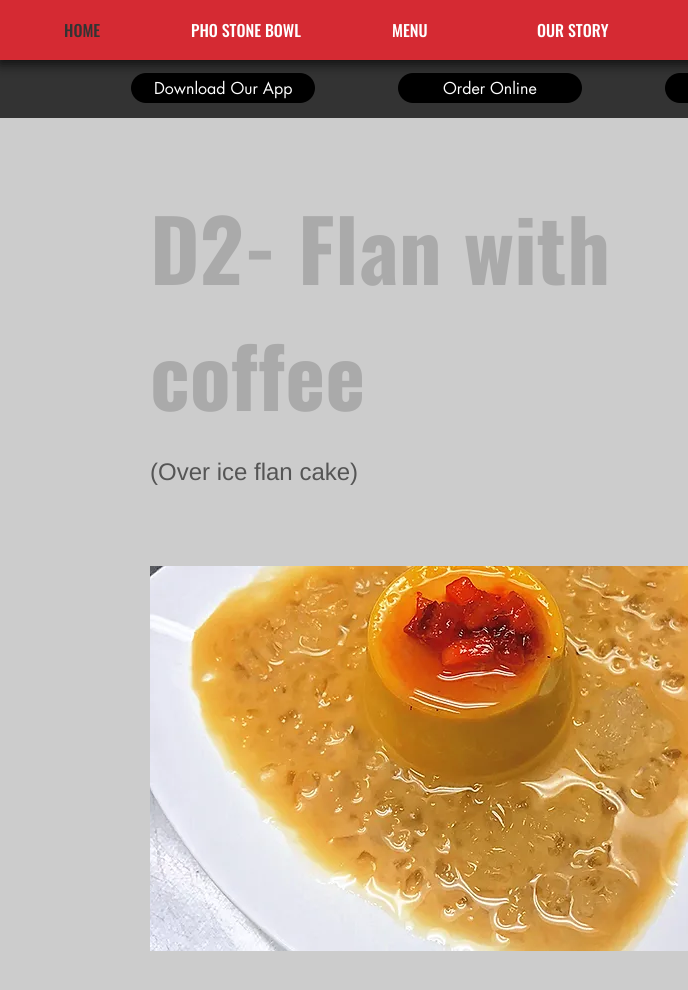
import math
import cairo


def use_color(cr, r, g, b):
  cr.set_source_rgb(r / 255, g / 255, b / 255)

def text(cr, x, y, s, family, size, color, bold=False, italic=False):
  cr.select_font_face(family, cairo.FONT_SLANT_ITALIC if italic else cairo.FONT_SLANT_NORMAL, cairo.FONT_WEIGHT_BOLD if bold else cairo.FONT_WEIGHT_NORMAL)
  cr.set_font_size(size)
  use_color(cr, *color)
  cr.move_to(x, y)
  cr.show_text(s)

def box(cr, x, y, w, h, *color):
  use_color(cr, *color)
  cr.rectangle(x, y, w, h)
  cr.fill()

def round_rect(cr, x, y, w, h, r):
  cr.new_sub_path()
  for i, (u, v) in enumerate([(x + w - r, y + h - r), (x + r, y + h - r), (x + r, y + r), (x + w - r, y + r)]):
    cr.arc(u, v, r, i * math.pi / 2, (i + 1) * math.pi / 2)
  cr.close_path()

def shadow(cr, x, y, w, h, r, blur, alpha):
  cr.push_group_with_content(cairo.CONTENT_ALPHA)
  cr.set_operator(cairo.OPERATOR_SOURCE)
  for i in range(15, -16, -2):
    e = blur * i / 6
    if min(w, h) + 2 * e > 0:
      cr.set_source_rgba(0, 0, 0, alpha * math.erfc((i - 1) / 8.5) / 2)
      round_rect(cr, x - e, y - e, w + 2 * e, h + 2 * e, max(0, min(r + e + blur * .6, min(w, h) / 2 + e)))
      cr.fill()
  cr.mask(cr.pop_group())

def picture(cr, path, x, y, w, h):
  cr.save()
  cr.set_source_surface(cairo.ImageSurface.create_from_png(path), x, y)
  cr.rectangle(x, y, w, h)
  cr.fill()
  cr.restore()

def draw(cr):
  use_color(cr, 204, 204, 204)
  cr.paint()
  box(cr, 0, 60, 688, 58, 51, 51, 51)
  use_color(cr, 0, 0, 0)
  shadow(cr, 0, 4, 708, 60, 0, 6.5, 0.73)
  box(cr, 0, 0, 688, 60, 213, 42, 51)
  use_color(cr, 0, 0, 0)
  round_rect(cr, 131, 73, 184, 30, 15)
  cr.fill()
  round_rect(cr, 398, 73, 184, 30, 15)
  cr.fill()
  round_rect(cr, 665, 73, 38, 30, 15)
  cr.fill()
  picture(cr, "img_01.png", 150, 566, 538, 385)
  text(cr, 64, 37, "HOME", "Oswald Medium", 16, (51, 51, 51))
  text(cr, 191, 37, "PHO STONE BOWL", "Oswald Medium", 16, (255, 255, 255))
  text(cr, 392, 37, "MENU", "Oswald Medium", 16, (255, 255, 255))
  text(cr, 537, 37, "OUR STORY", "Oswald Medium", 16, (255, 255, 255))
  text(cr, 154, 94, "Download Our App", "futura", 16, (255, 255, 255))
  text(cr, 443, 94, "Order Online", "futura", 16, (255, 255, 255))
  text(cr, 150, 285, "D2- Flan with", "Oswald", 85, (170, 170, 170), bold=True)
  text(cr, 150, 411, "coffee", "Oswald", 85, (170, 170, 170), bold=True)
  text(cr, 150, 480, "(Over ice flan cake)", "Liberation Sans", 24, (85, 85, 85))


surface = cairo.ImageSurface(cairo.FORMAT_RGB24, 688, 990)
cr = cairo.Context(surface)
options = cairo.FontOptions()
options.set_hint_metrics(cairo.HINT_METRICS_OFF)
options.set_hint_style(cairo.HINT_STYLE_NONE)
cr.set_font_options(options)
cr.set_miter_limit(4)
draw(cr)
surface.write_to_png("out.png")
